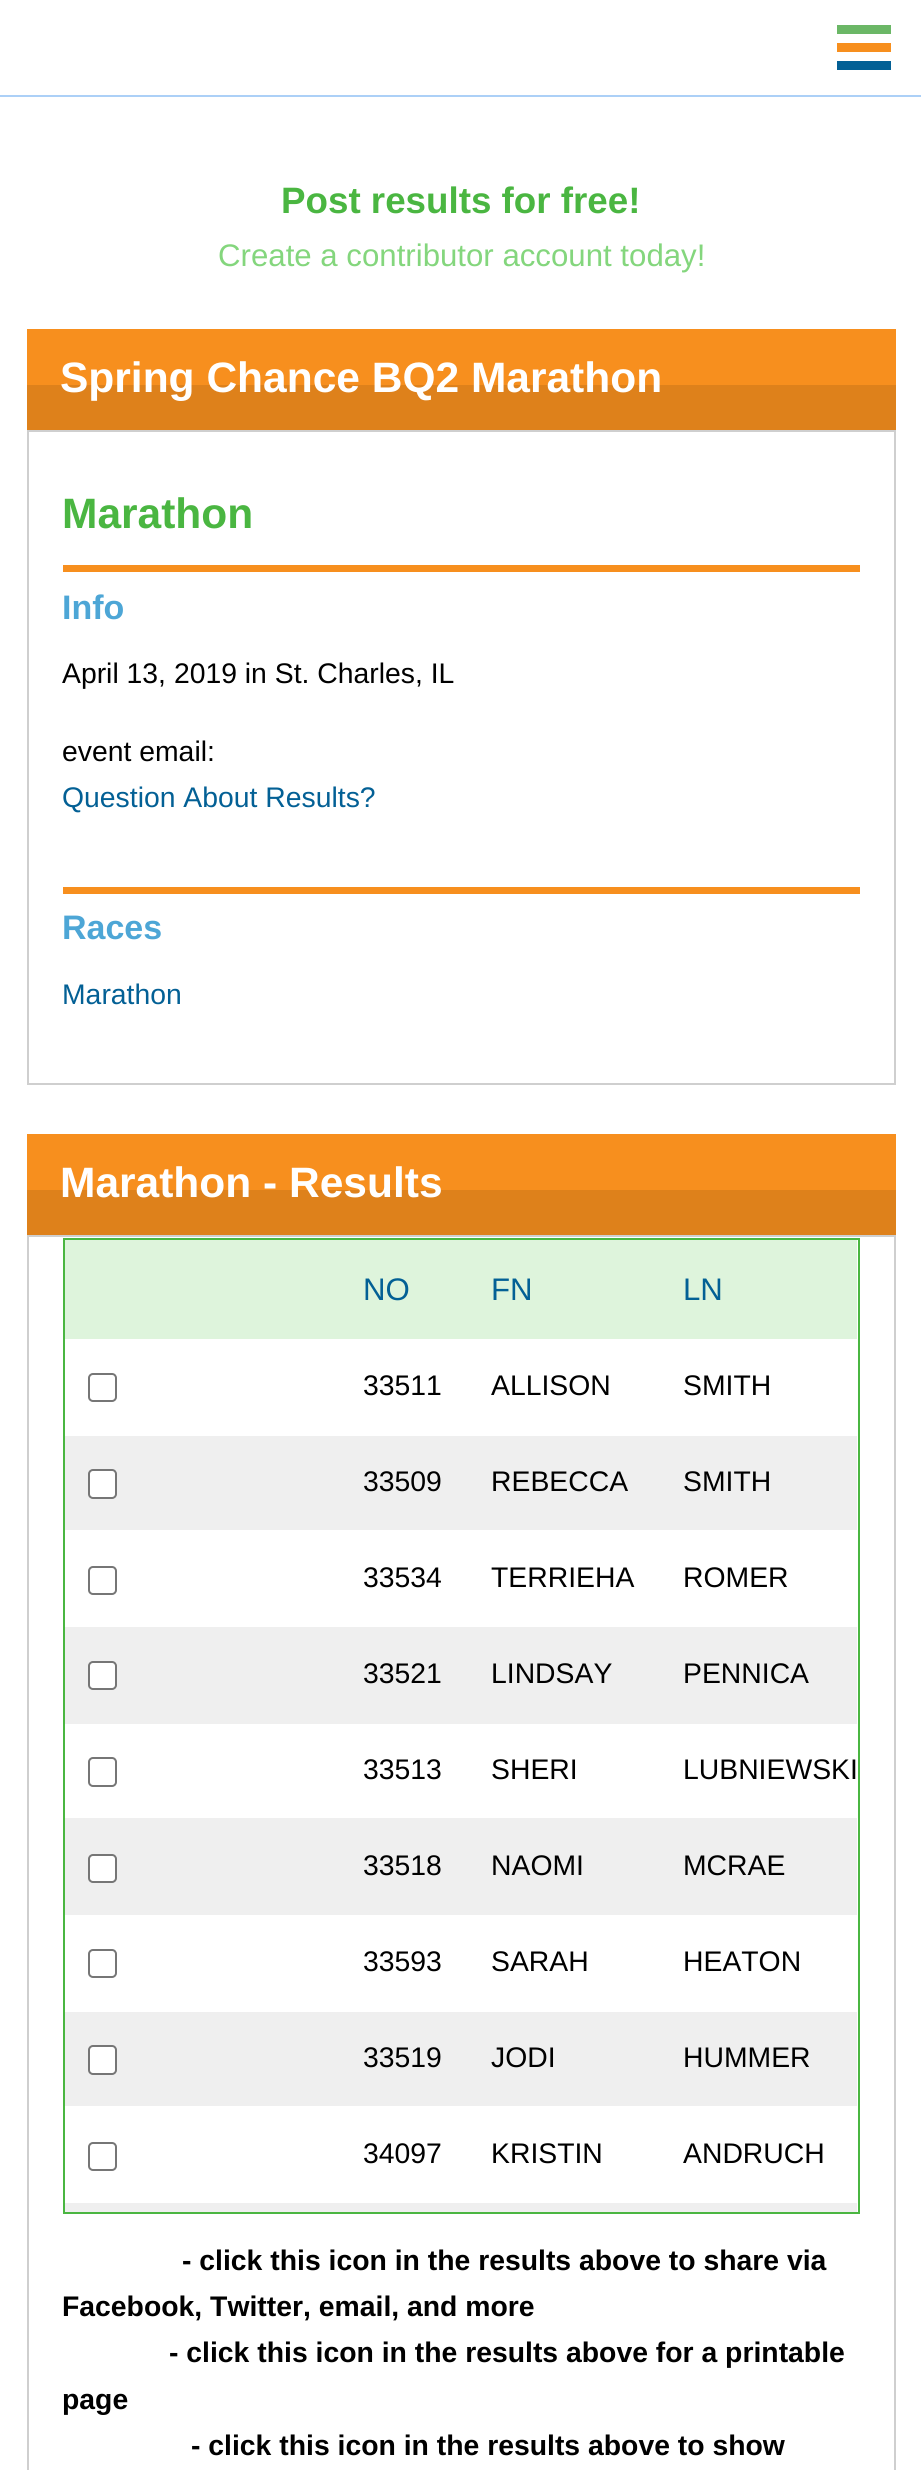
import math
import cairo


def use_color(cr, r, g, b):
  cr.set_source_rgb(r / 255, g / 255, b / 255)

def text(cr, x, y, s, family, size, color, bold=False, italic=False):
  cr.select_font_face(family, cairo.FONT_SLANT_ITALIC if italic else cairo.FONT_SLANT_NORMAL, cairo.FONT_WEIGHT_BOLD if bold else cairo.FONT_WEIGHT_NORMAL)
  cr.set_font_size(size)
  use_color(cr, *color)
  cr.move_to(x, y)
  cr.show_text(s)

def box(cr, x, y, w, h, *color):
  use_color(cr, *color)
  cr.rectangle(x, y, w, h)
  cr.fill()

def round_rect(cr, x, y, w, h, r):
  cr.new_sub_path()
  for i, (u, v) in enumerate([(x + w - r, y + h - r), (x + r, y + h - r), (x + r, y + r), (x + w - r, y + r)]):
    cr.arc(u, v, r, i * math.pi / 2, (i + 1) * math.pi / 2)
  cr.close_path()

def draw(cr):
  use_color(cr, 255, 255, 255)
  cr.paint()
  box(cr, 0, 95, 921, 2, 172, 208, 247)
  box(cr, 837, 25, 54, 9, 107, 183, 102)
  box(cr, 837, 43, 54, 9, 247, 143, 30)
  box(cr, 837, 61, 54, 9, 3, 96, 149)
  box(cr, 27, 329, 869, 56, 247, 143, 30)
  box(cr, 27, 385, 869, 45, 222, 129, 27)
  cr.rectangle(28, 431, 867, 653)
  use_color(cr, 207, 207, 207)
  cr.stroke()
  box(cr, 63, 565, 797, 7, 247, 143, 30)
  box(cr, 63, 887, 797, 7, 247, 143, 30)
  box(cr, 27, 1134, 869, 56, 247, 143, 30)
  box(cr, 27, 1190, 869, 45, 222, 129, 27)
  cr.rectangle(28, 1236, 867, 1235)
  use_color(cr, 207, 207, 207)
  cr.stroke()
  cr.rectangle(64, 1239, 795, 974)
  use_color(cr, 74, 182, 65)
  cr.stroke()
  box(cr, 65, 1240, 792, 99, 222, 244, 220)
  round_rect(cr, 89, 1374, 27, 27, 4)
  use_color(cr, 118, 118, 118)
  cr.stroke()
  box(cr, 65, 1436, 792, 94, 239, 239, 239)
  use_color(cr, 255, 255, 255)
  round_rect(cr, 89, 1470, 27, 28, 4)
  cr.fill_preserve()
  use_color(cr, 118, 118, 118)
  cr.stroke()
  round_rect(cr, 89, 1567, 27, 27, 4)
  cr.stroke()
  box(cr, 65, 1627, 792, 97, 239, 239, 239)
  use_color(cr, 255, 255, 255)
  round_rect(cr, 89, 1662, 27, 27, 4)
  cr.fill_preserve()
  use_color(cr, 118, 118, 118)
  cr.stroke()
  round_rect(cr, 89, 1758, 27, 28, 4)
  cr.stroke()
  box(cr, 65, 1818, 792, 97, 239, 239, 239)
  use_color(cr, 255, 255, 255)
  round_rect(cr, 89, 1855, 27, 27, 4)
  cr.fill_preserve()
  use_color(cr, 118, 118, 118)
  cr.stroke()
  round_rect(cr, 89, 1950, 27, 27, 4)
  cr.stroke()
  box(cr, 65, 2012, 792, 94, 239, 239, 239)
  use_color(cr, 255, 255, 255)
  round_rect(cr, 89, 2046, 27, 28, 4)
  cr.fill_preserve()
  use_color(cr, 118, 118, 118)
  cr.stroke()
  round_rect(cr, 89, 2143, 27, 27, 4)
  cr.stroke()
  box(cr, 65, 2203, 792, 9, 239, 239, 239)
  text(cr, 281, 213, "Post results for free!", "Liberation Sans", 36.75, (74, 182, 65), bold=True)
  text(cr, 218, 266, "Create a contributor account today!", "Liberation Sans", 31.2, (132, 214, 125))
  text(cr, 60, 392, "Spring Chance BQ2 Marathon", "Liberation Sans", 42.5, (255, 255, 255), bold=True)
  text(cr, 62, 528, "Marathon", "Liberation Sans", 42.5, (74, 182, 65), bold=True)
  text(cr, 62, 619, "Info", "Liberation Sans", 34, (77, 166, 214), bold=True)
  text(cr, 62, 683, "April 13, 2019 in St. Charles, IL", "Liberation Sans", 28.35, (0, 0, 0))
  text(cr, 62, 761, "event email:", "Liberation Sans", 28.35, (0, 0, 0))
  text(cr, 62, 807, "Question About Results?", "Liberation Sans", 28.35, (3, 96, 149))
  text(cr, 62, 939, "Races", "Liberation Sans", 34, (77, 166, 214), bold=True)
  text(cr, 62, 1004, "Marathon", "Liberation Sans", 28.35, (3, 96, 149))
  text(cr, 60, 1197, "Marathon - Results", "Liberation Sans", 42.5, (255, 255, 255), bold=True)
  text(cr, 363, 1300, "NO", "Liberation Sans", 31.2, (3, 96, 149))
  text(cr, 491, 1300, "FN", "Liberation Sans", 31.2, (3, 96, 149))
  text(cr, 683, 1300, "LN", "Liberation Sans", 31.2, (3, 96, 149))
  text(cr, 363, 1395, "33511", "Liberation Sans", 28.35, (0, 0, 0))
  text(cr, 491, 1395, "ALLISON", "Liberation Sans", 28.35, (0, 0, 0))
  text(cr, 683, 1395, "SMITH", "Liberation Sans", 28.35, (0, 0, 0))
  text(cr, 363, 1491, "33509", "Liberation Sans", 28.35, (0, 0, 0))
  text(cr, 491, 1491, "REBECCA", "Liberation Sans", 28.35, (0, 0, 0))
  text(cr, 683, 1491, "SMITH", "Liberation Sans", 28.35, (0, 0, 0))
  text(cr, 363, 1587, "33534", "Liberation Sans", 28.35, (0, 0, 0))
  text(cr, 491, 1587, "TERRIEHA", "Liberation Sans", 28.35, (0, 0, 0))
  text(cr, 683, 1587, "ROMER", "Liberation Sans", 28.35, (0, 0, 0))
  text(cr, 363, 1683, "33521", "Liberation Sans", 28.35, (0, 0, 0))
  text(cr, 491, 1683, "LINDSAY", "Liberation Sans", 28.35, (0, 0, 0))
  text(cr, 683, 1683, "PENNICA", "Liberation Sans", 28.35, (0, 0, 0))
  text(cr, 363, 1779, "33513", "Liberation Sans", 28.35, (0, 0, 0))
  text(cr, 491, 1779, "SHERI", "Liberation Sans", 28.35, (0, 0, 0))
  text(cr, 683, 1779, "LUBNIEWSKI", "Liberation Sans", 28.35, (0, 0, 0))
  text(cr, 363, 1875, "33518", "Liberation Sans", 28.35, (0, 0, 0))
  text(cr, 491, 1875, "NAOMI", "Liberation Sans", 28.35, (0, 0, 0))
  text(cr, 683, 1875, "MCRAE", "Liberation Sans", 28.35, (0, 0, 0))
  text(cr, 363, 1971, "33593", "Liberation Sans", 28.35, (0, 0, 0))
  text(cr, 491, 1971, "SARAH", "Liberation Sans", 28.35, (0, 0, 0))
  text(cr, 683, 1971, "HEATON", "Liberation Sans", 28.35, (0, 0, 0))
  text(cr, 363, 2067, "33519", "Liberation Sans", 28.35, (0, 0, 0))
  text(cr, 491, 2067, "JODI", "Liberation Sans", 28.35, (0, 0, 0))
  text(cr, 683, 2067, "HUMMER", "Liberation Sans", 28.35, (0, 0, 0))
  text(cr, 363, 2163, "34097", "Liberation Sans", 28.35, (0, 0, 0))
  text(cr, 491, 2163, "KRISTIN", "Liberation Sans", 28.35, (0, 0, 0))
  text(cr, 683, 2163, "ANDRUCH", "Liberation Sans", 28.35, (0, 0, 0))
  text(cr, 182, 2270, "- click this icon in the results above to share via", "Liberation Sans", 28.35, (0, 0, 0), bold=True)
  text(cr, 62, 2316, "Facebook, Twitter, email, and more", "Liberation Sans", 28.35, (0, 0, 0), bold=True)
  text(cr, 169, 2362, "- click this icon in the results above for a printable", "Liberation Sans", 28.35, (0, 0, 0), bold=True)
  text(cr, 62, 2409, "page", "Liberation Sans", 28.35, (0, 0, 0), bold=True)
  text(cr, 191, 2455, "- click this icon in the results above to show", "Liberation Sans", 28.35, (0, 0, 0), bold=True)


surface = cairo.ImageSurface(cairo.FORMAT_RGB24, 921, 2470)
cr = cairo.Context(surface)
options = cairo.FontOptions()
options.set_hint_metrics(cairo.HINT_METRICS_OFF)
options.set_hint_style(cairo.HINT_STYLE_NONE)
cr.set_font_options(options)
cr.set_miter_limit(4)
draw(cr)
surface.write_to_png("out.png")
